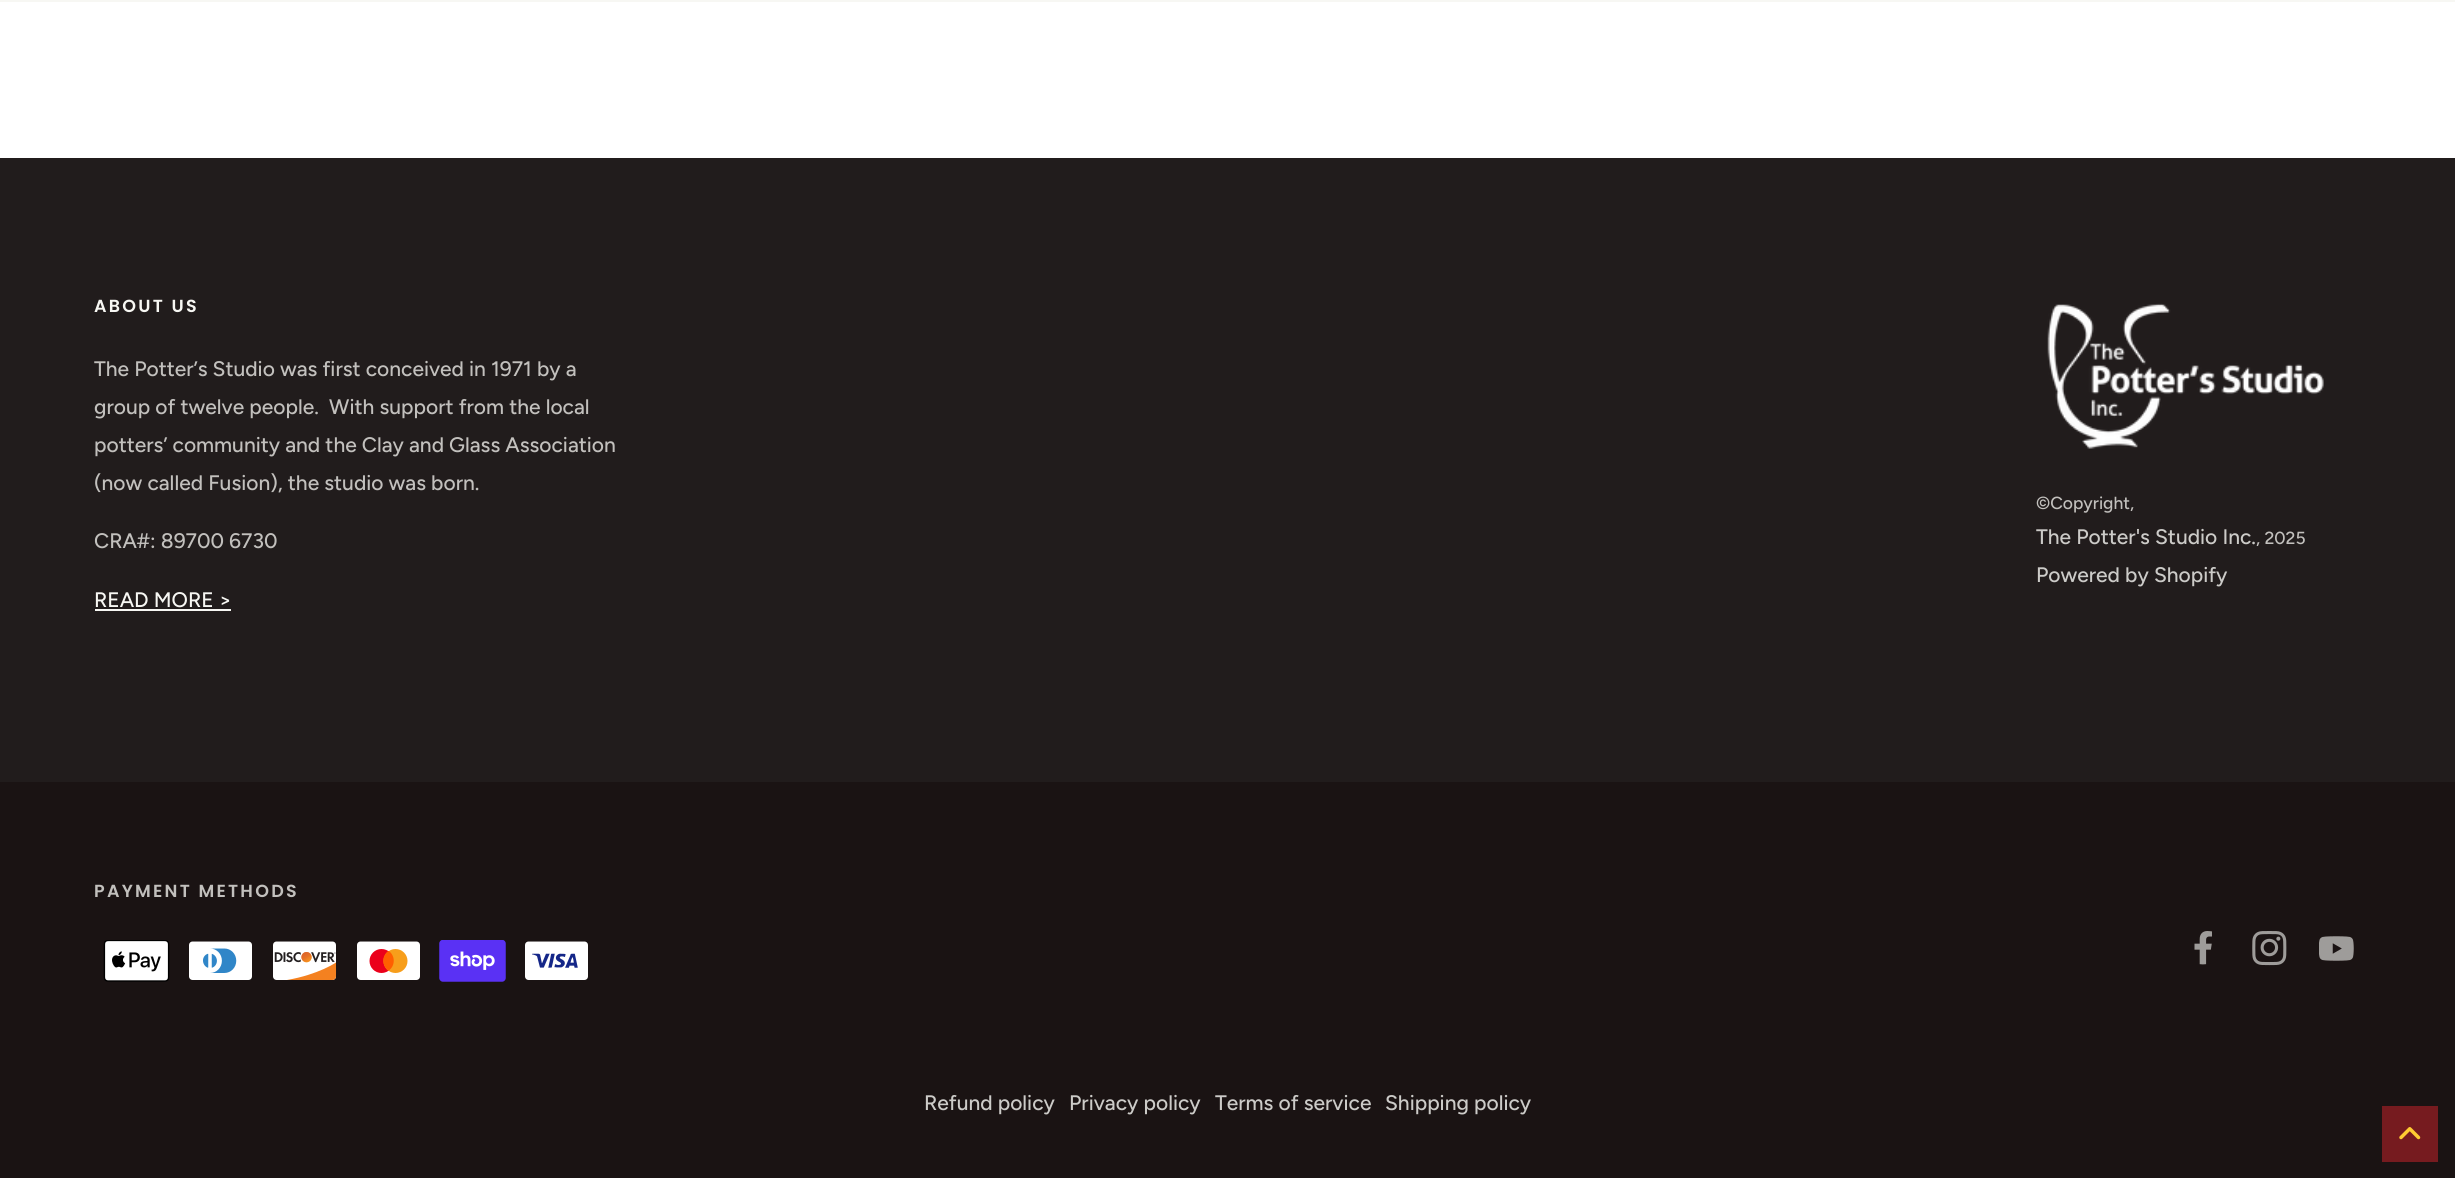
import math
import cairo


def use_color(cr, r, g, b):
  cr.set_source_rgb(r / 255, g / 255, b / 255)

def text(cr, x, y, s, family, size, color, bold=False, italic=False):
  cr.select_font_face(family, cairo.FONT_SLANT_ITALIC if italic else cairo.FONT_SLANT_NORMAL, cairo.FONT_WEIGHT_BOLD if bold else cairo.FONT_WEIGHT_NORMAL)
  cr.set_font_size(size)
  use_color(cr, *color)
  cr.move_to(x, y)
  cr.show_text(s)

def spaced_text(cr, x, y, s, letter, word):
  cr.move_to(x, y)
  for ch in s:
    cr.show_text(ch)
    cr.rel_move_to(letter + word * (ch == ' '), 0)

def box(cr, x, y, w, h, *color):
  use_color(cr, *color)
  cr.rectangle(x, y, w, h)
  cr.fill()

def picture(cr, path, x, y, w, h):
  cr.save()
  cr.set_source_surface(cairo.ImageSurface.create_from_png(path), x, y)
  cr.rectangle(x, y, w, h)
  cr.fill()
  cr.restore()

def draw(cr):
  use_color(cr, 33, 28, 28)
  cr.paint()
  box(cr, 0, 0, 2455, 2, 247, 247, 243)
  box(cr, 0, 2, 2455, 156, 255, 255, 255)
  box(cr, 95, 609, 136, 2, 247, 247, 243)
  picture(cr, "img_01.png", 2047, 303, 277, 146)
  box(cr, 0, 782, 2455, 396, 26, 19, 19)
  picture(cr, "img_02.png", 103, 940, 67, 42)
  picture(cr, "img_03.png", 189, 941, 63, 39)
  picture(cr, "img_04.png", 273, 941, 64, 39)
  picture(cr, "img_05.png", 357, 941, 63, 39)
  picture(cr, "img_06.png", 439, 940, 67, 42)
  picture(cr, "img_07.png", 525, 941, 63, 39)
  picture(cr, "img_08.png", 2194, 931, 18, 34)
  picture(cr, "img_09.png", 2252, 931, 35, 35)
  picture(cr, "img_10.png", 2319, 936, 35, 25)
  box(cr, 2382, 1106, 56, 56, 118, 27, 31)
  picture(cr, "img_11.png", 2399, 1127, 22, 13)
  cr.select_font_face("Poppins SemiBold")
  cr.set_font_size(17.5)
  use_color(cr, 247, 247, 243)
  spaced_text(cr, 94, 312, "ABOUT US", 2.25, 0)
  text(cr, 94, 376, "The Potter’s Studio was first conceived in 1971 by a", "Figtree Medium", 21, (194, 192, 189))
  text(cr, 94, 414, "group of twelve people.  With support from the local", "Figtree Medium", 21, (194, 192, 189))
  text(cr, 94, 452, "potters’ community and the Clay and Glass Association", "Figtree Medium", 21, (194, 192, 189))
  text(cr, 94, 490, "(now called Fusion), the studio was born.", "Figtree Medium", 21, (194, 192, 189))
  text(cr, 94, 548, "CRA#: 89700 6730", "Figtree Medium", 21, (194, 192, 189))
  text(cr, 94, 607, "READ MORE >", "Figtree Medium", 21, (247, 247, 243))
  text(cr, 2036, 509, "©Copyright,", "Figtree Medium", 17.5, (194, 192, 189))
  text(cr, 2036, 544, "The Potter's Studio Inc.", "Figtree Medium", 21, (204, 203, 200))
  text(cr, 2256, 544, ", 2025", "Figtree Medium", 17.5, (194, 192, 189))
  text(cr, 2036, 582, "Powered by Shopify", "Figtree Medium", 21, (204, 203, 200))
  cr.select_font_face("Poppins SemiBold")
  cr.set_font_size(17.5)
  use_color(cr, 194, 192, 189)
  spaced_text(cr, 94, 897, "PAYMENT METHODS", 2.25, 0)
  text(cr, 924, 1110, "Refund policy", "Figtree Medium", 21, (204, 203, 200))
  text(cr, 1069, 1110, "Privacy policy", "Figtree Medium", 21, (204, 203, 200))
  text(cr, 1215, 1110, "Terms of service", "Figtree Medium", 21, (204, 203, 200))
  text(cr, 1385, 1110, "Shipping policy", "Figtree Medium", 21, (204, 203, 200))


surface = cairo.ImageSurface(cairo.FORMAT_RGB24, 2455, 1178)
cr = cairo.Context(surface)
options = cairo.FontOptions()
options.set_hint_metrics(cairo.HINT_METRICS_OFF)
options.set_hint_style(cairo.HINT_STYLE_NONE)
cr.set_font_options(options)
cr.set_miter_limit(4)
draw(cr)
surface.write_to_png("out.png")
